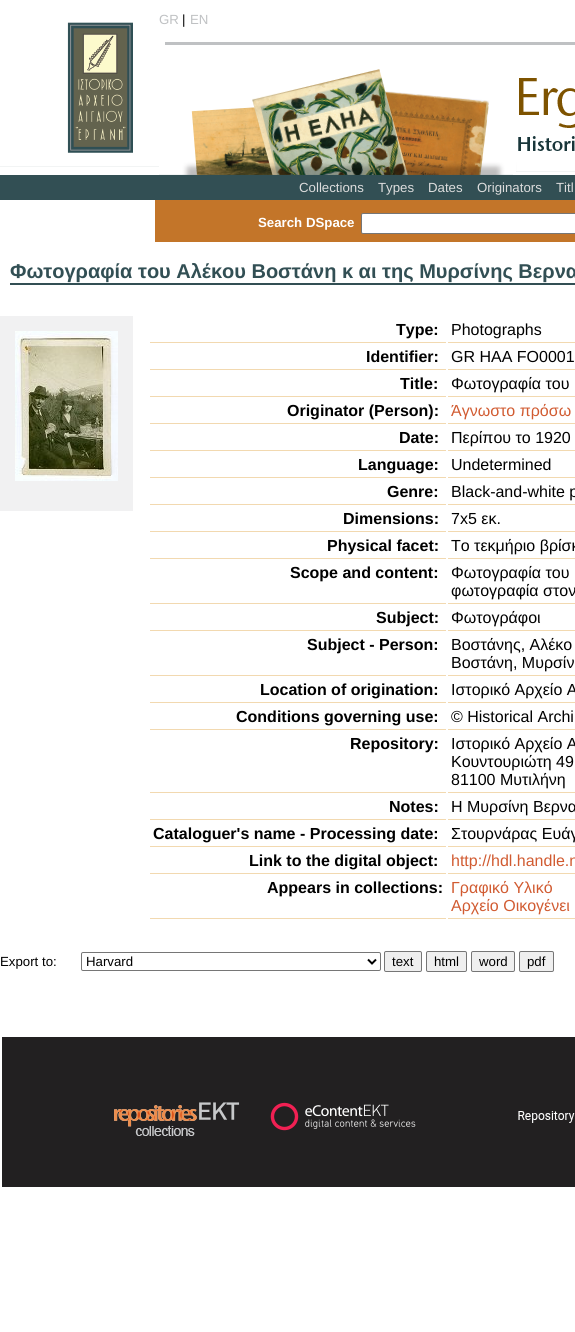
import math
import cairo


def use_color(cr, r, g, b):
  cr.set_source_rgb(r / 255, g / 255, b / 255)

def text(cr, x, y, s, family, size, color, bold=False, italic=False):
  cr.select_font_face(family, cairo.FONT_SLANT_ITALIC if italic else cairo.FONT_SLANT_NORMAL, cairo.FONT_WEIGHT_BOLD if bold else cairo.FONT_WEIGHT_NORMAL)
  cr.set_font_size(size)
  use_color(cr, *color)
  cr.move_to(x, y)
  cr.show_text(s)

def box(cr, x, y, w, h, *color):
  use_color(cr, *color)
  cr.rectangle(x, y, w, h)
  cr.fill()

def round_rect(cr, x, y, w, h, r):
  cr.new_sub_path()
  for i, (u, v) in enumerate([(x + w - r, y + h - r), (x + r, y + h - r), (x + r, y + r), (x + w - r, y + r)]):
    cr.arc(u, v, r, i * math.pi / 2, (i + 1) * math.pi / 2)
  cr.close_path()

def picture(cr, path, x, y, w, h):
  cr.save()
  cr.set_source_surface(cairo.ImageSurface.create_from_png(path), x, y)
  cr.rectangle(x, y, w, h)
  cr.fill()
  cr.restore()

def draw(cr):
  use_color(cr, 255, 255, 255)
  cr.paint()
  box(cr, 159, 42, 416, 3, 191, 193, 195)
  picture(cr, "img_03.png", 0, 22, 165, 145)
  picture(cr, "img_01.png", 159, 69, 354, 106)
  picture(cr, "img_02.png", 516, 78, 59, 94)
  box(cr, 0, 175, 575, 25, 50, 79, 84)
  box(cr, 155, 200, 420, 42, 195, 117, 41)
  use_color(cr, 255, 255, 255)
  round_rect(cr, 361.5, 213.5, 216, 20, 1.5)
  cr.fill_preserve()
  use_color(cr, 118, 118, 118)
  cr.set_line_width(1)
  cr.stroke()
  box(cr, 10, 283, 565, 2, 50, 79, 84)
  box(cr, 0, 316, 133, 195, 241, 241, 242)
  picture(cr, "img_04.png", 15, 331, 103, 150)
  box(cr, 150, 342, 296, 1, 242, 217, 176)
  box(cr, 448, 342, 127, 1, 242, 217, 176)
  box(cr, 150, 369, 296, 1, 242, 217, 176)
  box(cr, 448, 369, 127, 1, 242, 217, 176)
  box(cr, 150, 396, 296, 1, 242, 217, 176)
  box(cr, 448, 396, 127, 1, 242, 217, 176)
  box(cr, 150, 423, 296, 1, 242, 217, 176)
  box(cr, 448, 423, 127, 1, 242, 217, 176)
  box(cr, 150, 450, 296, 1, 242, 217, 176)
  box(cr, 448, 450, 127, 1, 242, 217, 176)
  box(cr, 150, 477, 296, 1, 242, 217, 176)
  box(cr, 448, 477, 127, 1, 242, 217, 176)
  box(cr, 150, 504, 296, 1, 242, 217, 176)
  box(cr, 448, 504, 127, 1, 242, 217, 176)
  box(cr, 150, 531, 296, 1, 242, 217, 176)
  box(cr, 448, 531, 127, 1, 242, 217, 176)
  box(cr, 150, 558, 296, 1, 242, 217, 176)
  box(cr, 448, 558, 127, 1, 242, 217, 176)
  box(cr, 150, 603, 296, 1, 242, 217, 176)
  box(cr, 448, 603, 127, 1, 242, 217, 176)
  box(cr, 150, 630, 296, 1, 242, 217, 176)
  box(cr, 448, 630, 127, 1, 242, 217, 176)
  box(cr, 150, 675, 296, 1, 242, 217, 176)
  box(cr, 448, 675, 127, 1, 242, 217, 176)
  box(cr, 150, 702, 296, 1, 242, 217, 176)
  box(cr, 448, 702, 127, 1, 242, 217, 176)
  box(cr, 150, 729, 296, 1, 242, 217, 176)
  box(cr, 448, 729, 127, 1, 242, 217, 176)
  box(cr, 150, 792, 296, 1, 242, 217, 176)
  box(cr, 448, 792, 127, 1, 242, 217, 176)
  box(cr, 150, 819, 296, 1, 242, 217, 176)
  box(cr, 448, 819, 127, 1, 242, 217, 176)
  box(cr, 150, 846, 296, 1, 242, 217, 176)
  box(cr, 448, 846, 127, 1, 242, 217, 176)
  box(cr, 150, 873, 296, 1, 242, 217, 176)
  box(cr, 448, 873, 127, 1, 242, 217, 176)
  box(cr, 150, 918, 296, 1, 242, 217, 176)
  box(cr, 448, 918, 127, 1, 242, 217, 176)
  round_rect(cr, 81.5, 952.5, 299, 18, 1.5)
  use_color(cr, 118, 118, 118)
  cr.stroke()
  cr.new_path()
  cr.move_to(368, 959.5)
  cr.line_to(372, 963.5)
  cr.line_to(376, 959.5)
  use_color(cr, 0, 0, 0)
  cr.set_line_width(2)
  cr.stroke()
  use_color(cr, 239, 239, 239)
  round_rect(cr, 384.5, 951.5, 37, 20, 1.5)
  cr.fill_preserve()
  use_color(cr, 118, 118, 118)
  cr.set_line_width(1)
  cr.stroke()
  use_color(cr, 239, 239, 239)
  round_rect(cr, 426.5, 951.5, 40, 20, 1.5)
  cr.fill_preserve()
  use_color(cr, 118, 118, 118)
  cr.stroke()
  use_color(cr, 239, 239, 239)
  round_rect(cr, 471.5, 951.5, 43, 20, 1.5)
  cr.fill_preserve()
  use_color(cr, 118, 118, 118)
  cr.stroke()
  use_color(cr, 239, 239, 239)
  round_rect(cr, 519.5, 951.5, 34, 20, 1.5)
  cr.fill_preserve()
  use_color(cr, 118, 118, 118)
  cr.stroke()
  picture(cr, "img_05.png", 2, 1037, 573, 150)
  text(cr, 159, 24, "GR", "Liberation Sans", 13.25, (191, 193, 195))
  text(cr, 182, 24, "|", "Liberation Sans", 13.25, (0, 0, 0))
  text(cr, 190, 24, "EN", "Liberation Sans", 13.25, (191, 193, 195))
  text(cr, 299, 192, "Collections", "Liberation Sans", 13.25, (221, 221, 221))
  text(cr, 378, 192, "Types", "Liberation Sans", 13.25, (221, 221, 221))
  text(cr, 428, 192, "Dates", "Liberation Sans", 13.25, (221, 221, 221))
  text(cr, 477, 192, "Originators", "Liberation Sans", 13.25, (221, 221, 221))
  text(cr, 556, 192, "Titl", "Liberation Sans", 13.25, (221, 221, 221))
  text(cr, 258, 227, "Search DSpace", "Liberation Sans", 13.25, (255, 255, 255), bold=True)
  text(cr, 10, 278, "Φωτογραφία του Αλέκου Βοστάνη κ αι της Μυρσίνης Βερνα", "Liberation Sans", 20, (50, 79, 84), bold=True)
  text(cr, 396, 335, "Type:", "Liberation Sans", 16, (0, 0, 0), bold=True)
  text(cr, 451, 335, "Photographs", "Liberation Sans", 16, (0, 0, 0))
  text(cr, 366, 362, "Identifier:", "Liberation Sans", 16, (0, 0, 0), bold=True)
  text(cr, 451, 362, "GR HAA FO0001", "Liberation Sans", 16, (0, 0, 0))
  text(cr, 400, 389, "Title:", "Liberation Sans", 16, (0, 0, 0), bold=True)
  text(cr, 451, 389, "Φωτογραφία του", "Liberation Sans", 16, (0, 0, 0))
  text(cr, 287, 416, "Originator (Person):", "Liberation Sans", 16, (0, 0, 0), bold=True)
  text(cr, 451, 416, "Άγνωστο πρόσω", "Liberation Sans", 16, (209, 91, 49))
  text(cr, 399, 443, "Date:", "Liberation Sans", 16, (0, 0, 0), bold=True)
  text(cr, 451, 443, "Περίπου το 1920", "Liberation Sans", 16, (0, 0, 0))
  text(cr, 358, 470, "Language:", "Liberation Sans", 16, (0, 0, 0), bold=True)
  text(cr, 451, 470, "Undetermined", "Liberation Sans", 16, (0, 0, 0))
  text(cr, 387, 497, "Genre:", "Liberation Sans", 16, (0, 0, 0), bold=True)
  text(cr, 451, 497, "Black-and-white p", "Liberation Sans", 16, (0, 0, 0))
  text(cr, 343, 524, "Dimensions:", "Liberation Sans", 16, (0, 0, 0), bold=True)
  text(cr, 451, 524, "7x5 εκ.", "Liberation Sans", 16, (0, 0, 0))
  text(cr, 327, 551, "Physical facet:", "Liberation Sans", 16, (0, 0, 0), bold=True)
  text(cr, 451, 551, "Το τεκμήριο βρίσκ", "Liberation Sans", 16, (0, 0, 0))
  text(cr, 290, 578, "Scope and content:", "Liberation Sans", 16, (0, 0, 0), bold=True)
  text(cr, 451, 578, "Φωτογραφία του", "Liberation Sans", 16, (0, 0, 0))
  text(cr, 451, 596, "φωτογραφία στον", "Liberation Sans", 16, (0, 0, 0))
  text(cr, 376, 623, "Subject:", "Liberation Sans", 16, (0, 0, 0), bold=True)
  text(cr, 451, 623, "Φωτογράφοι", "Liberation Sans", 16, (0, 0, 0))
  text(cr, 307, 650, "Subject - Person:", "Liberation Sans", 16, (0, 0, 0), bold=True)
  text(cr, 451, 650, "Βοστάνης, Αλέκο", "Liberation Sans", 16, (0, 0, 0))
  text(cr, 451, 668, "Βοστάνη, Μυρσίν", "Liberation Sans", 16, (0, 0, 0))
  text(cr, 260, 695, "Location of origination:", "Liberation Sans", 16, (0, 0, 0), bold=True)
  text(cr, 451, 695, "Ιστορικό Αρχείο Α", "Liberation Sans", 16, (0, 0, 0))
  text(cr, 236, 722, "Conditions governing use:", "Liberation Sans", 16, (0, 0, 0), bold=True)
  text(cr, 451, 722, "© Historical Archi", "Liberation Sans", 16, (0, 0, 0))
  text(cr, 350, 749, "Repository:", "Liberation Sans", 16, (0, 0, 0), bold=True)
  text(cr, 451, 749, "Ιστορικό Αρχείο Α", "Liberation Sans", 16, (0, 0, 0))
  text(cr, 451, 767, "Κουντουριώτη 49", "Liberation Sans", 16, (0, 0, 0))
  text(cr, 451, 785, "81100 Μυτιλήνη", "Liberation Sans", 16, (0, 0, 0))
  text(cr, 389, 812, "Notes:", "Liberation Sans", 16, (0, 0, 0), bold=True)
  text(cr, 451, 812, "Η Μυρσίνη Βερνα", "Liberation Sans", 16, (0, 0, 0))
  text(cr, 153, 839, "Cataloguer's name - Processing date:", "Liberation Sans", 16, (0, 0, 0), bold=True)
  text(cr, 451, 839, "Στουρνάρας Ευάγ", "Liberation Sans", 16, (0, 0, 0))
  text(cr, 249, 866, "Link to the digital object:", "Liberation Sans", 16, (0, 0, 0), bold=True)
  text(cr, 451, 866, "http://hdl.handle.n", "Liberation Sans", 16, (209, 91, 49))
  text(cr, 267, 893, "Appears in collections:", "Liberation Sans", 16, (0, 0, 0), bold=True)
  text(cr, 451, 893, "Γραφικό Υλικό", "Liberation Sans", 16, (209, 91, 49))
  text(cr, 451, 911, "Αρχείο Οικογένει", "Liberation Sans", 16, (209, 91, 49))
  text(cr, 0, 966, "Export to:", "Liberation Sans", 13.25, (0, 0, 0))
  text(cr, 86, 966, "Harvard", "Liberation Sans", 13.25, (0, 0, 0))
  text(cr, 392, 966, "text", "Liberation Sans", 13.25, (0, 0, 0))
  text(cr, 434, 966, "html", "Liberation Sans", 13.25, (0, 0, 0))
  text(cr, 479, 966, "word", "Liberation Sans", 13.25, (0, 0, 0))
  text(cr, 527, 966, "pdf", "Liberation Sans", 13.25, (0, 0, 0))


surface = cairo.ImageSurface(cairo.FORMAT_RGB24, 575, 1332)
cr = cairo.Context(surface)
options = cairo.FontOptions()
options.set_hint_metrics(cairo.HINT_METRICS_OFF)
options.set_hint_style(cairo.HINT_STYLE_NONE)
cr.set_font_options(options)
cr.set_miter_limit(4)
draw(cr)
surface.write_to_png("out.png")
